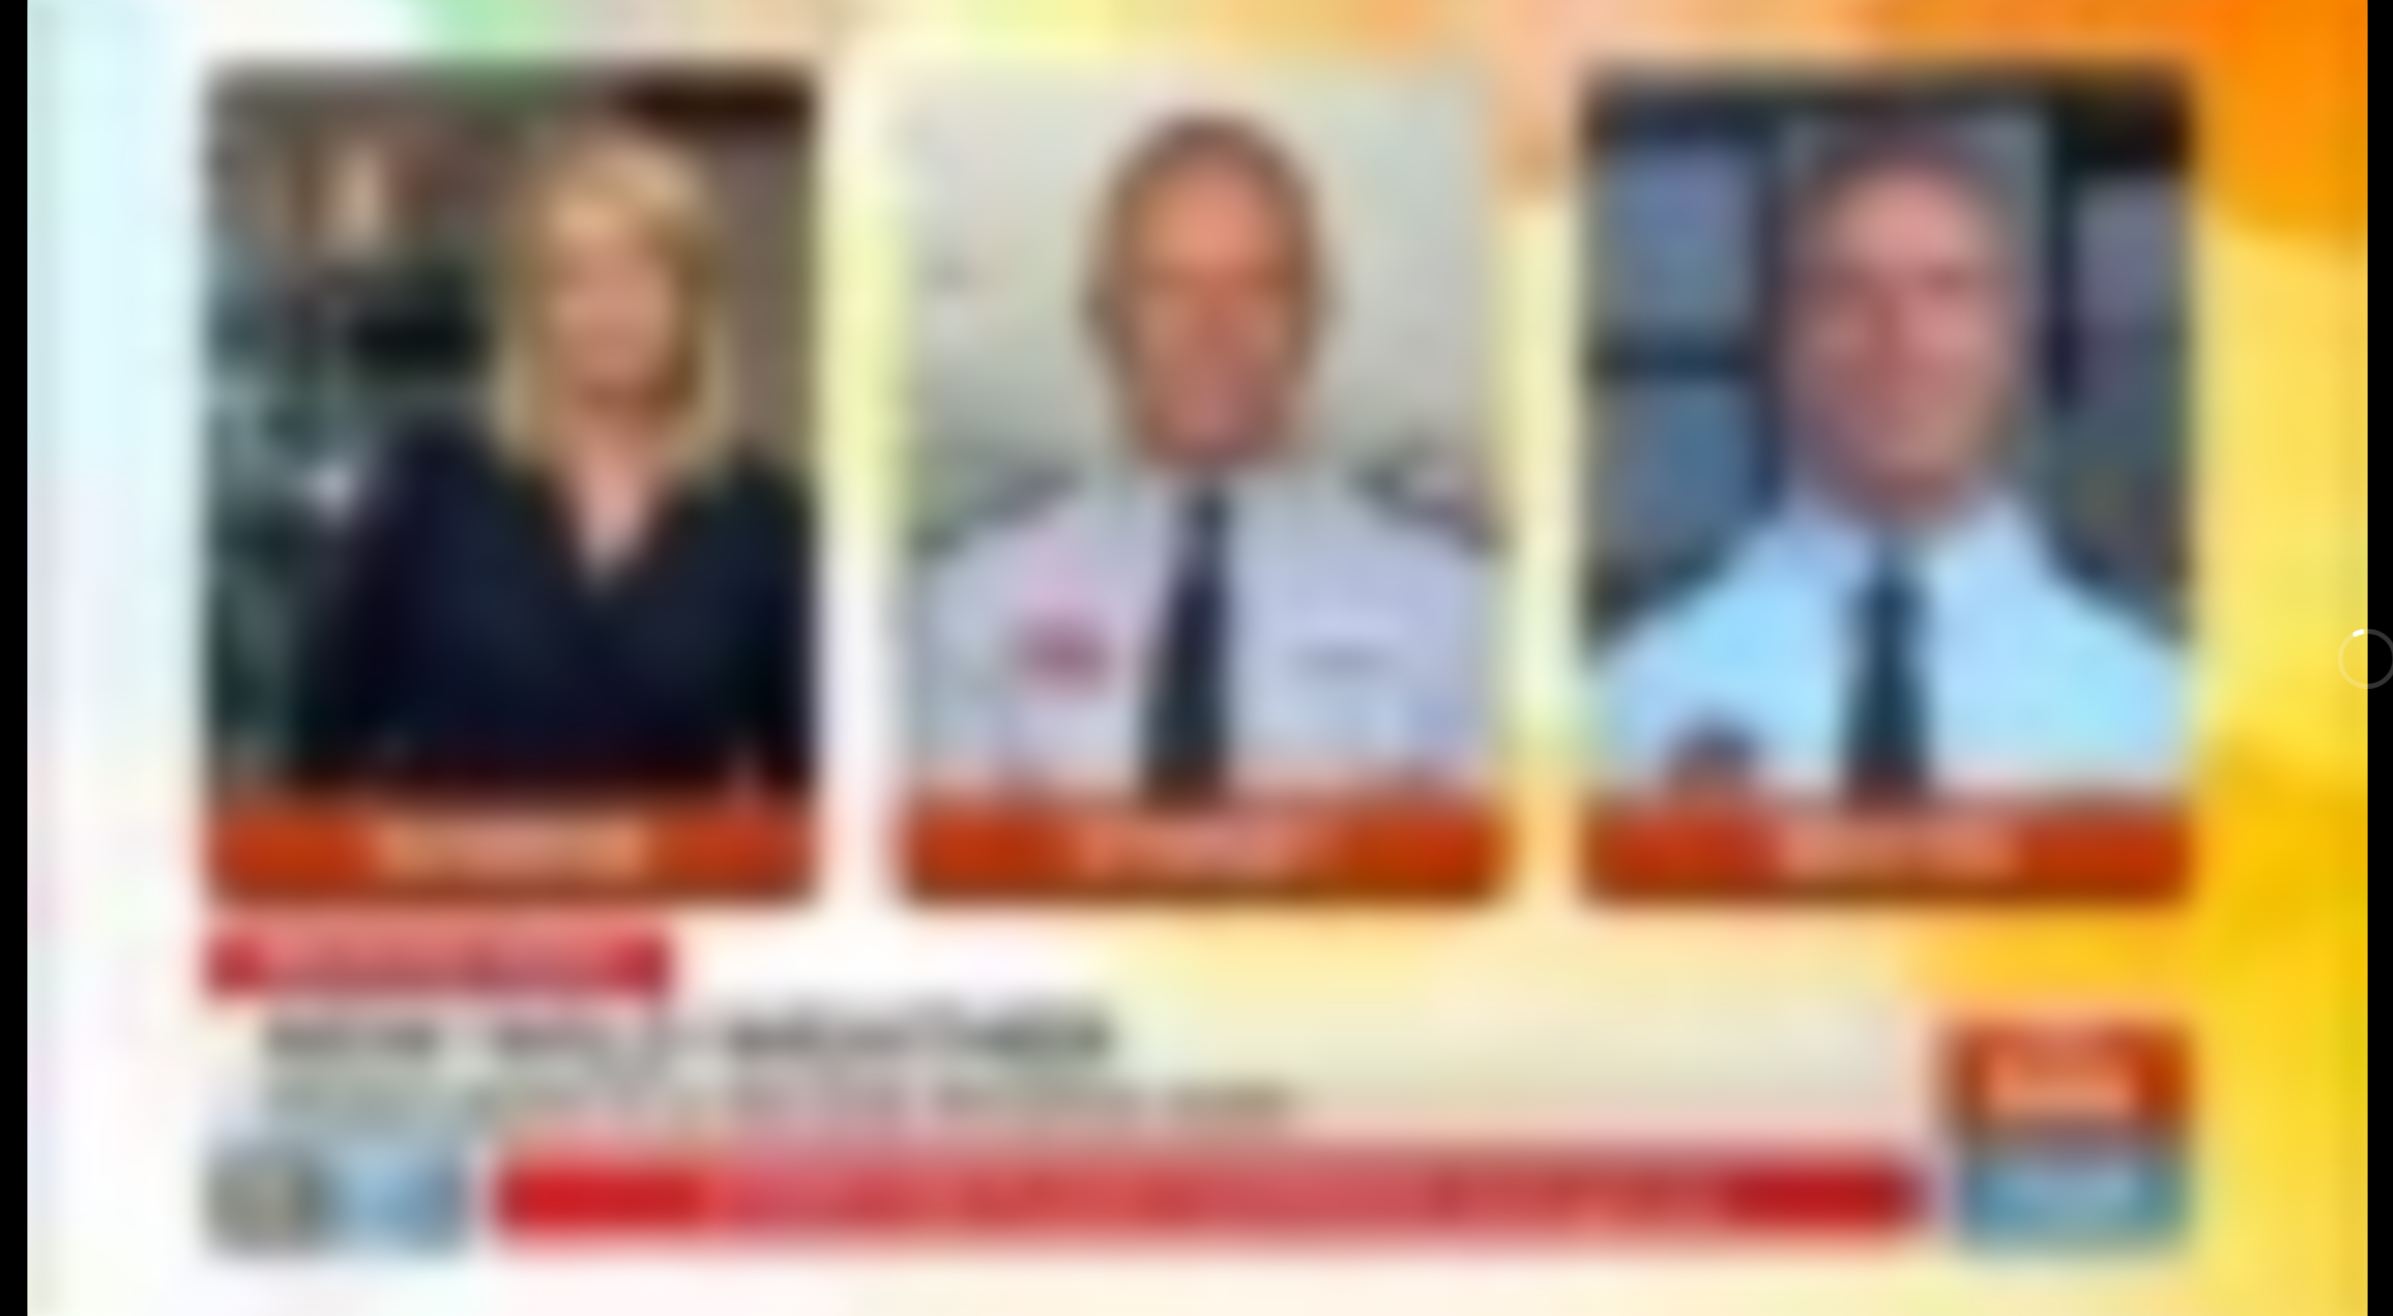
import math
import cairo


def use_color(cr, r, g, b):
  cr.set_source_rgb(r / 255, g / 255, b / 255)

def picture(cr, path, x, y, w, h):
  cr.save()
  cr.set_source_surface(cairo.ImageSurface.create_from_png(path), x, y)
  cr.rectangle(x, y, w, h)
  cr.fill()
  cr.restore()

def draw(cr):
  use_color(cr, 0, 0, 0)
  cr.paint()
  picture(cr, "img_01.png", 27, 0, 2366, 1316)


surface = cairo.ImageSurface(cairo.FORMAT_RGB24, 2393, 1316)
cr = cairo.Context(surface)
options = cairo.FontOptions()
options.set_hint_metrics(cairo.HINT_METRICS_OFF)
options.set_hint_style(cairo.HINT_STYLE_NONE)
cr.set_font_options(options)
cr.set_miter_limit(4)
draw(cr)
surface.write_to_png("out.png")
